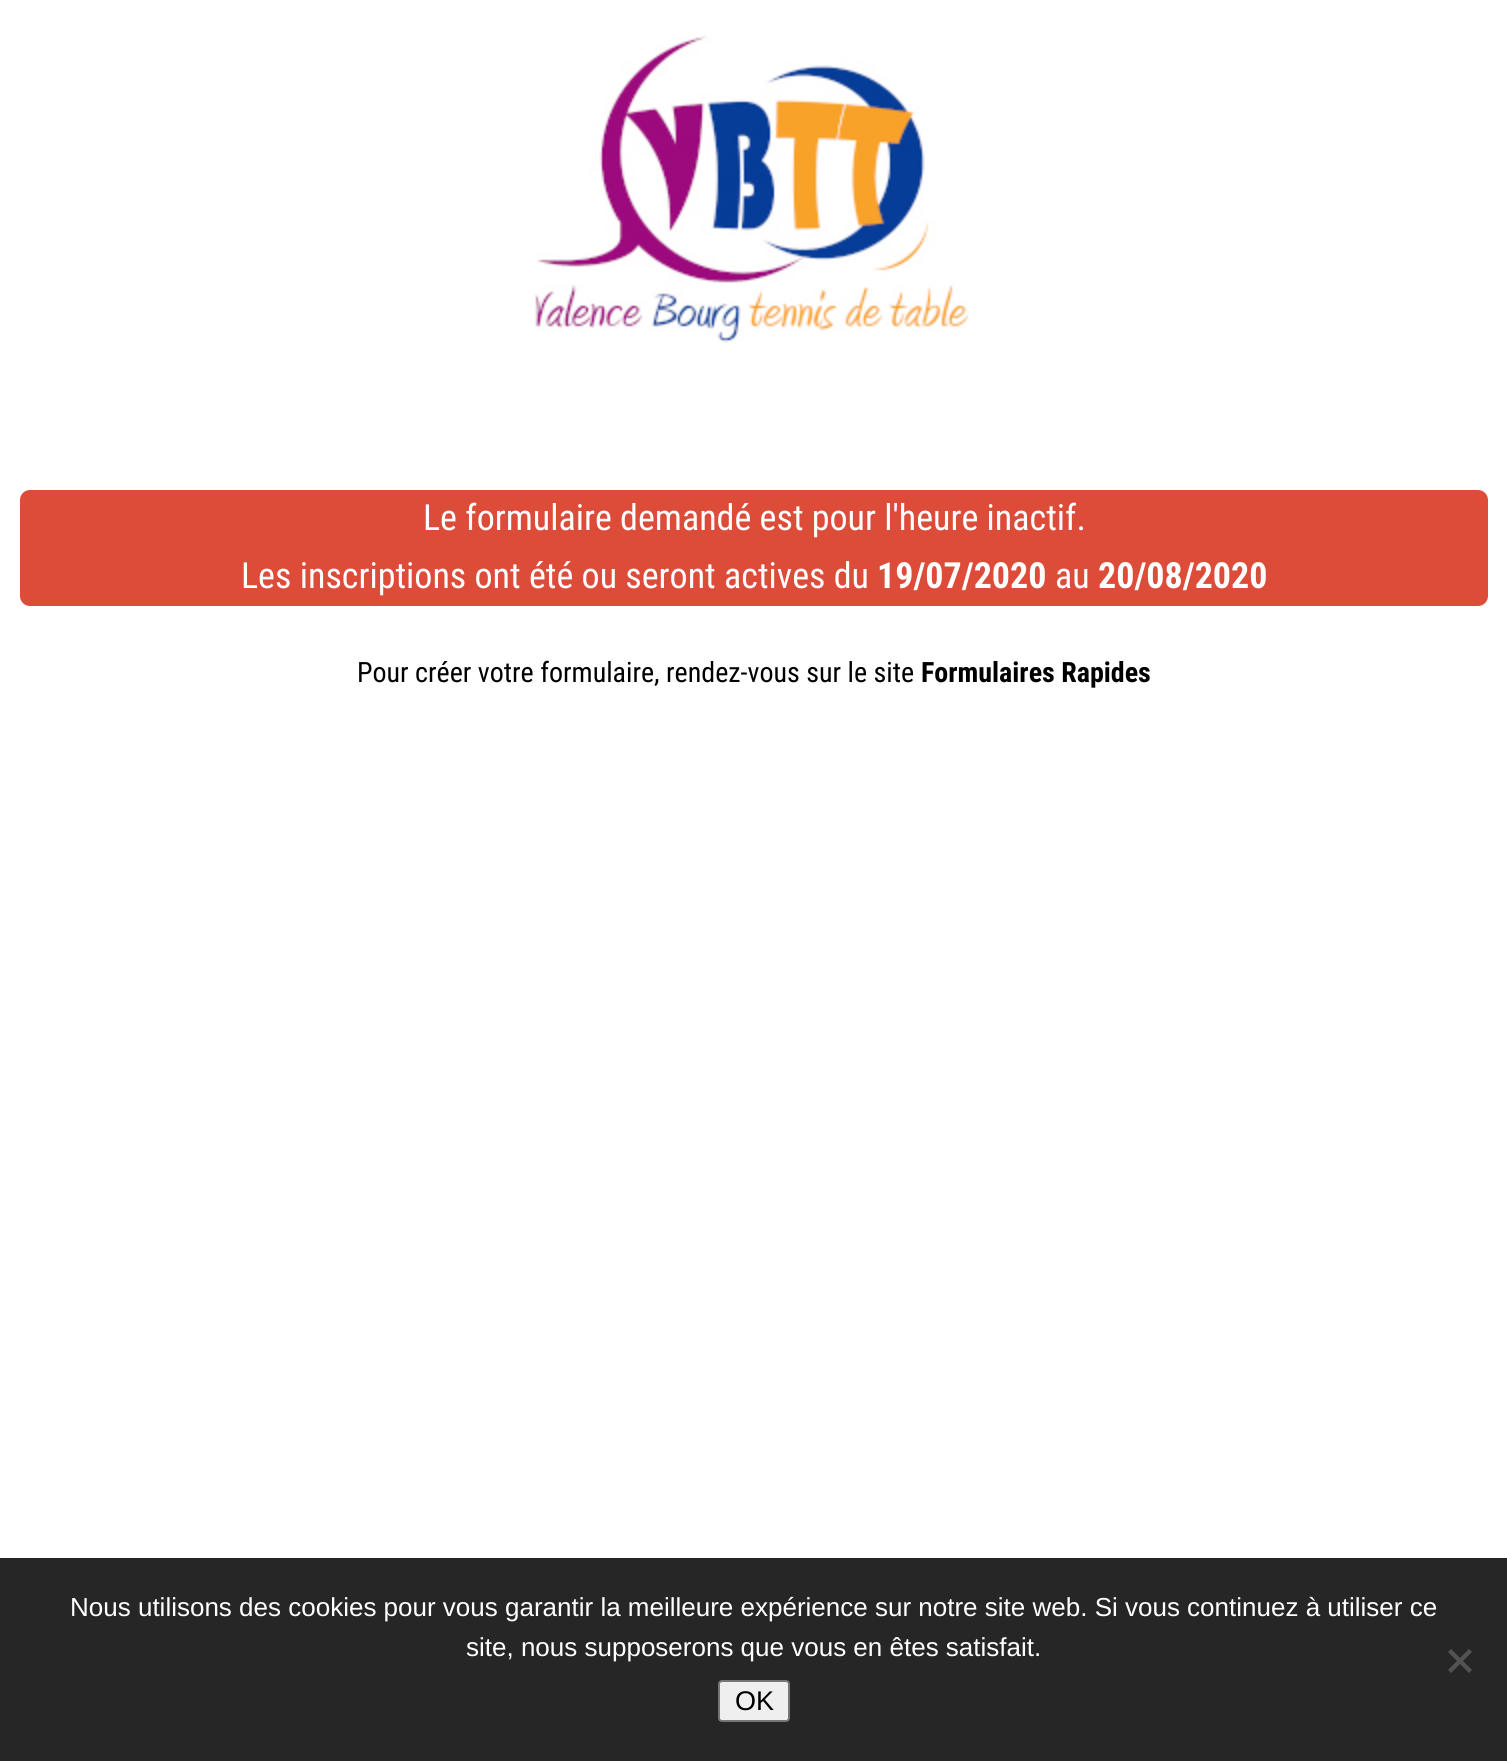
import math
import cairo


def use_color(cr, r, g, b):
  cr.set_source_rgb(r / 255, g / 255, b / 255)

def text(cr, x, y, s, family, size, color, bold=False, italic=False):
  cr.select_font_face(family, cairo.FONT_SLANT_ITALIC if italic else cairo.FONT_SLANT_NORMAL, cairo.FONT_WEIGHT_BOLD if bold else cairo.FONT_WEIGHT_NORMAL)
  cr.set_font_size(size)
  use_color(cr, *color)
  cr.move_to(x, y)
  cr.show_text(s)

def box(cr, x, y, w, h, *color):
  use_color(cr, *color)
  cr.rectangle(x, y, w, h)
  cr.fill()

def round_rect(cr, x, y, w, h, r):
  cr.new_sub_path()
  for i, (u, v) in enumerate([(x + w - r, y + h - r), (x + r, y + h - r), (x + r, y + r), (x + w - r, y + r)]):
    cr.arc(u, v, r, i * math.pi / 2, (i + 1) * math.pi / 2)
  cr.close_path()

def picture(cr, path, x, y, w, h):
  cr.save()
  cr.set_source_surface(cairo.ImageSurface.create_from_png(path), x, y)
  cr.rectangle(x, y, w, h)
  cr.fill()
  cr.restore()

def draw(cr):
  use_color(cr, 255, 255, 255)
  cr.paint()
  picture(cr, "img_01.png", 534, 35, 435, 308)
  use_color(cr, 221, 75, 57)
  round_rect(cr, 20, 490, 1468, 116, 10)
  cr.fill()
  box(cr, 0, 1558, 1507, 203, 38, 38, 38)
  use_color(cr, 83, 83, 83)
  cr.new_path()
  cr.move_to(1469, 1649)
  cr.line_to(1472, 1652)
  cr.line_to(1451, 1673)
  cr.line_to(1448, 1670)
  cr.close_path()
  cr.fill()
  cr.new_path()
  cr.move_to(1448, 1652)
  cr.line_to(1451, 1649)
  cr.line_to(1472, 1670)
  cr.line_to(1469, 1673)
  cr.close_path()
  cr.fill()
  use_color(cr, 239, 239, 239)
  round_rect(cr, 719, 1681, 70, 40, 3)
  cr.fill_preserve()
  use_color(cr, 118, 118, 118)
  cr.stroke()
  text(cr, 423, 530, "Le formulaire demandé est pour l'heure inactif.", "Roboto Condensed", 36, (255, 255, 255))
  text(cr, 241, 588, "Les inscriptions ont été ou seront actives du", "Roboto Condensed", 36, (255, 255, 255))
  text(cr, 877, 588, "19/07/2020", "Roboto Condensed", 36, (255, 255, 255), bold=True)
  text(cr, 1055, 588, "au", "Roboto Condensed", 36, (255, 255, 255))
  text(cr, 1098, 588, "20/08/2020", "Roboto Condensed", 36, (255, 255, 255), bold=True)
  text(cr, 357, 682, "Pour créer votre formulaire, rendez-vous sur le site", "Roboto Condensed", 28, (0, 0, 0))
  text(cr, 921, 682, "Formulaires Rapides", "Roboto Condensed", 28, (0, 0, 0), bold=True)
  text(cr, 70, 1616, "Nous utilisons des cookies pour vous garantir la meilleure expérience sur notre site web. Si vous continuez à utiliser ce", "Liberation Sans", 26, (255, 255, 255))
  text(cr, 466, 1656, "site, nous supposerons que vous en êtes satisfait.", "Liberation Sans", 26, (255, 255, 255))
  text(cr, 735, 1710, "OK", "Liberation Sans", 27, (0, 0, 0))


surface = cairo.ImageSurface(cairo.FORMAT_RGB24, 1507, 1761)
cr = cairo.Context(surface)
options = cairo.FontOptions()
options.set_hint_metrics(cairo.HINT_METRICS_OFF)
options.set_hint_style(cairo.HINT_STYLE_NONE)
cr.set_font_options(options)
cr.set_miter_limit(4)
draw(cr)
surface.write_to_png("out.png")
